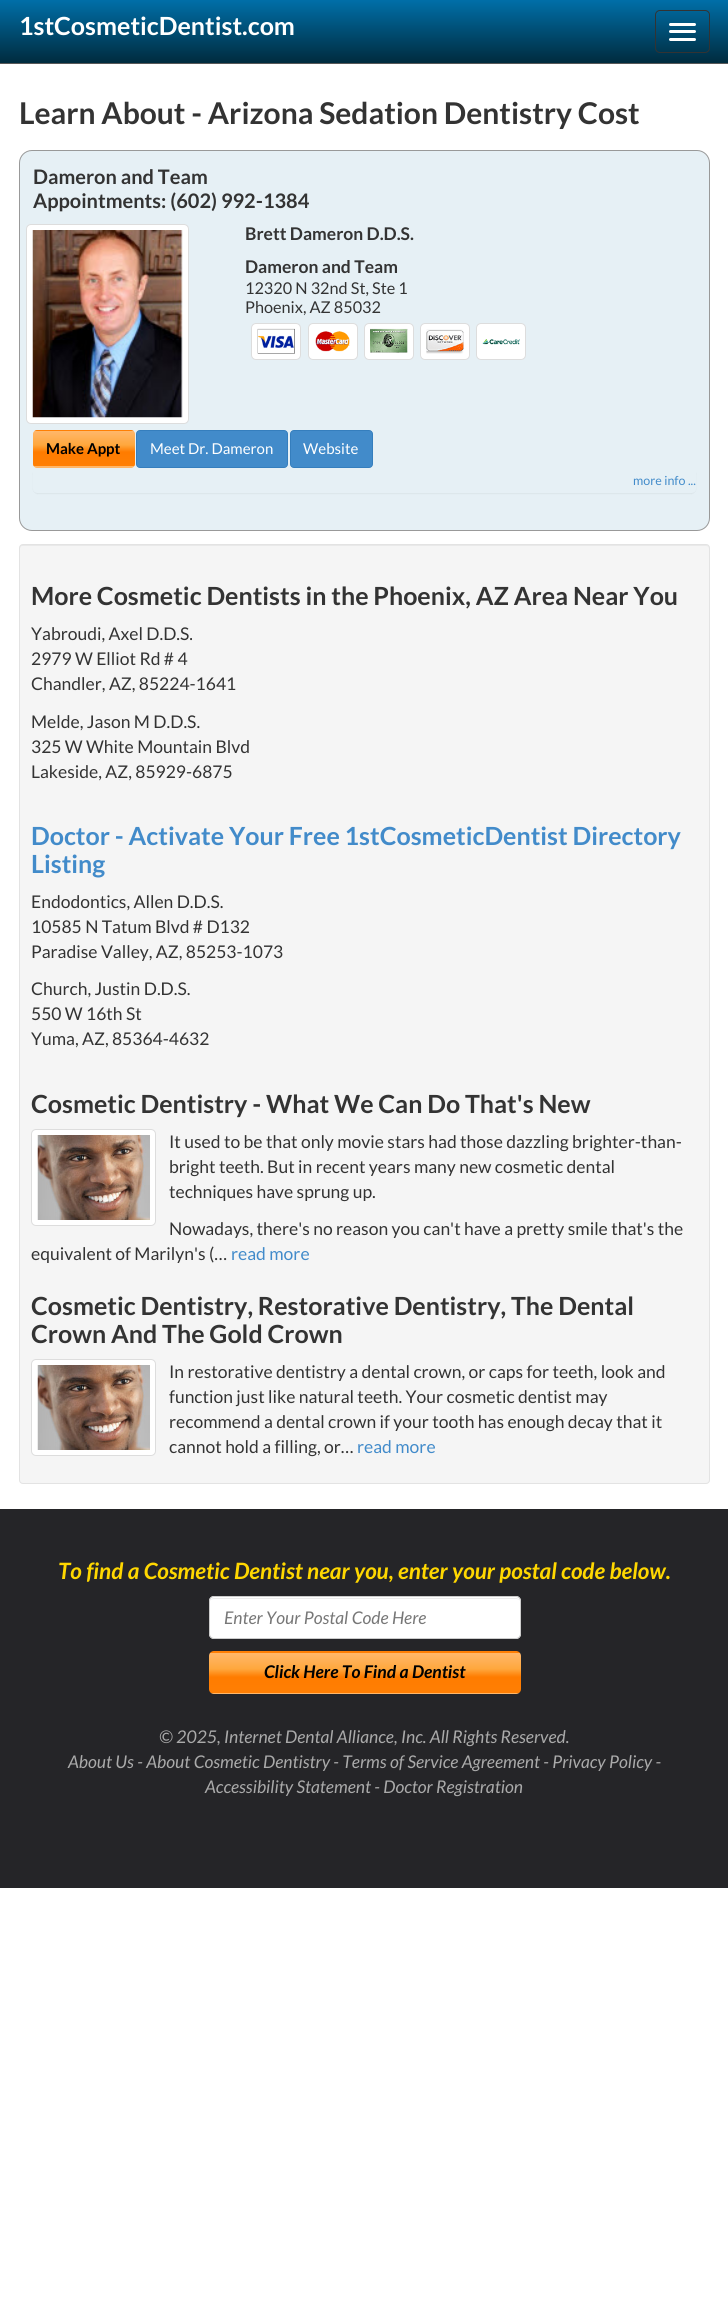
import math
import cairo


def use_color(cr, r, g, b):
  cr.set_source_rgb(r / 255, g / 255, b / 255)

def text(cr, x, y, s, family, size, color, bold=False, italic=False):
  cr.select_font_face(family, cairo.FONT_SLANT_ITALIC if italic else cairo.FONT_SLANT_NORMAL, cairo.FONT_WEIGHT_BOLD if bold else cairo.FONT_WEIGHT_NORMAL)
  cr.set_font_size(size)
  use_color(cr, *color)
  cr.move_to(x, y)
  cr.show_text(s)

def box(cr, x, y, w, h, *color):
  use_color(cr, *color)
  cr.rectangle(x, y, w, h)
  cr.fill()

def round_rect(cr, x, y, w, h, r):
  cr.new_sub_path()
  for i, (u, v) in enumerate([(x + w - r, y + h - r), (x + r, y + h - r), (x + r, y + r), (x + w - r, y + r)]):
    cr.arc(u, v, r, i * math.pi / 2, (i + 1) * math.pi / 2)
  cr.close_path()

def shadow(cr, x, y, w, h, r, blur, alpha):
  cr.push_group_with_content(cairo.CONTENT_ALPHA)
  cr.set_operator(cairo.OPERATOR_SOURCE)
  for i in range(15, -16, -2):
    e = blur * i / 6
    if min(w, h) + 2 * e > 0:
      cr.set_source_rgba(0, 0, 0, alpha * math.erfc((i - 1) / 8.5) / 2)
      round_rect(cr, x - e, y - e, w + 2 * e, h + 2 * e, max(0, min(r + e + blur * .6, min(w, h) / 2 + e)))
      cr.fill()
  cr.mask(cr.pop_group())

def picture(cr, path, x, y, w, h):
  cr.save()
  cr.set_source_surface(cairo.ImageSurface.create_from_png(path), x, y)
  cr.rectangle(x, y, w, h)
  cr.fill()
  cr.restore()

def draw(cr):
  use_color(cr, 255, 255, 255)
  cr.paint()
  gradient = cairo.LinearGradient(364, 0, 364, 63)
  gradient.add_color_stop_rgba(0, 0, 0.435, 0.659, 1)
  gradient.add_color_stop_rgba(1, 0, 0.169, 0.243, 1)
  cr.set_source(gradient)
  cr.rectangle(0, 0, 728, 63)
  cr.fill()
  box(cr, 0, 63, 728, 1, 88, 88, 88)
  round_rect(cr, 655.5, 10.5, 54, 42, 4.5)
  use_color(cr, 51, 51, 51)
  cr.set_line_width(1)
  cr.stroke()
  use_color(cr, 255, 255, 255)
  round_rect(cr, 669, 23, 27, 3, 1.5)
  cr.fill()
  round_rect(cr, 669, 30, 27, 3, 1.5)
  cr.fill()
  round_rect(cr, 669, 38, 27, 3, 1.5)
  cr.fill()
  use_color(cr, 230, 240, 245)
  round_rect(cr, 19.5, 150.5, 690, 380, 12.5)
  cr.fill_preserve()
  use_color(cr, 153, 153, 153)
  cr.stroke()
  use_color(cr, 255, 255, 255)
  round_rect(cr, 26.5, 224.5, 162, 199, 4.5)
  cr.fill_preserve()
  use_color(cr, 221, 221, 221)
  cr.stroke()
  picture(cr, "img_01.png", 32, 230, 151, 188)
  use_color(cr, 255, 255, 255)
  round_rect(cr, 251.5, 323.5, 49, 36, 4.5)
  cr.fill_preserve()
  use_color(cr, 221, 221, 221)
  cr.stroke()
  picture(cr, "img_02.png", 257, 328, 38, 26)
  use_color(cr, 255, 255, 255)
  round_rect(cr, 308.5, 323.5, 49, 36, 4.5)
  cr.fill_preserve()
  use_color(cr, 221, 221, 221)
  cr.stroke()
  picture(cr, "img_03.png", 315, 331, 35, 21)
  use_color(cr, 255, 255, 255)
  round_rect(cr, 364.5, 323.5, 49, 36, 4.5)
  cr.fill_preserve()
  use_color(cr, 221, 221, 221)
  cr.stroke()
  picture(cr, "img_04.png", 370, 328, 38, 25)
  use_color(cr, 255, 255, 255)
  round_rect(cr, 420.5, 323.5, 49, 36, 4.5)
  cr.fill_preserve()
  use_color(cr, 221, 221, 221)
  cr.stroke()
  picture(cr, "img_05.png", 426, 329, 38, 25)
  use_color(cr, 255, 255, 255)
  round_rect(cr, 476.5, 323.5, 49, 36, 4.5)
  cr.fill_preserve()
  use_color(cr, 221, 221, 221)
  cr.stroke()
  picture(cr, "img_06.png", 482, 339, 38, 6)
  cr.save()
  round_rect(cr, 33, 430, 102, 38, 4)
  cr.clip()
  gradient = cairo.LinearGradient(84, 396, 84, 431)
  gradient.add_color_stop_rgba(0, 1, 0.718, 0.42, 1)
  gradient.add_color_stop_rgba(0.4, 1, 0.655, 0.239, 1)
  gradient.add_color_stop_rgba(0.6, 1, 0.486, 0, 1)
  gradient.add_color_stop_rgba(1, 1, 0.498, 0.016, 1)
  cr.set_source(gradient)
  cr.rectangle(33, 430, 102, 1)
  cr.fill()
  gradient = cairo.LinearGradient(84, 431, 84, 466)
  gradient.add_color_stop_rgba(0, 1, 0.718, 0.42, 1)
  gradient.add_color_stop_rgba(0.4, 1, 0.655, 0.239, 1)
  gradient.add_color_stop_rgba(0.6, 1, 0.486, 0, 1)
  gradient.add_color_stop_rgba(1, 1, 0.498, 0.016, 1)
  cr.set_source(gradient)
  cr.rectangle(33, 431, 102, 35)
  cr.fill()
  gradient = cairo.LinearGradient(84, 466, 84, 501)
  gradient.add_color_stop_rgba(0, 1, 0.718, 0.42, 1)
  gradient.add_color_stop_rgba(0.4, 1, 0.655, 0.239, 1)
  gradient.add_color_stop_rgba(0.6, 1, 0.486, 0, 1)
  gradient.add_color_stop_rgba(1, 1, 0.498, 0.016, 1)
  cr.set_source(gradient)
  cr.rectangle(33, 466, 102, 2)
  cr.fill()
  cr.restore()
  use_color(cr, 66, 139, 202)
  round_rect(cr, 136.5, 430.5, 151, 37, 3.5)
  cr.fill_preserve()
  use_color(cr, 53, 126, 189)
  cr.stroke()
  use_color(cr, 66, 139, 202)
  round_rect(cr, 290.5, 430.5, 82, 37, 3.5)
  cr.fill_preserve()
  use_color(cr, 53, 126, 189)
  cr.stroke()
  cr.save()
  cr.set_fill_rule(cairo.FILL_RULE_EVEN_ODD)
  cr.new_path()
  cr.move_to(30, 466)
  cr.line_to(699, 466)
  cr.line_to(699, 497)
  cr.line_to(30, 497)
  cr.close_path()
  cr.move_to(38, 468)
  cr.line_to(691, 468)
  cr.curve_to(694, 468, 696, 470, 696, 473)
  cr.line_to(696, 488)
  cr.curve_to(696, 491, 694, 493, 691, 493)
  cr.line_to(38, 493)
  cr.curve_to(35, 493, 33, 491, 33, 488)
  cr.line_to(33, 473)
  cr.curve_to(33, 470, 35, 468, 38, 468)
  cr.close_path()
  cr.clip()
  use_color(cr, 0, 0, 0)
  shadow(cr, 33, 469, 663, 25, 5, 0.5, 0.05)
  cr.restore()
  use_color(cr, 245, 245, 245)
  round_rect(cr, 19, 544, 691, 940, 4)
  cr.fill()
  use_color(cr, 233, 233, 233)
  cr.new_path()
  cr.move_to(22, 546)
  cr.line_to(706, 546)
  cr.curve_to(708, 546, 709, 547, 709, 549)
  cr.line_to(709, 548)
  cr.curve_to(709, 546, 708, 545, 706, 545)
  cr.line_to(22, 545)
  cr.curve_to(21, 545, 20, 546, 20, 548)
  cr.line_to(20, 549)
  cr.curve_to(20, 547, 21, 546, 22, 546)
  cr.close_path()
  cr.fill()
  round_rect(cr, 19.5, 544.5, 690, 939, 3.5)
  use_color(cr, 227, 227, 227)
  cr.stroke()
  use_color(cr, 255, 255, 255)
  round_rect(cr, 31.5, 1129.5, 124, 96, 4.5)
  cr.fill_preserve()
  use_color(cr, 221, 221, 221)
  cr.stroke()
  picture(cr, "img_07.png", 37, 1135, 113, 85)
  use_color(cr, 255, 255, 255)
  round_rect(cr, 31.5, 1359.5, 124, 96, 4.5)
  cr.fill_preserve()
  use_color(cr, 221, 221, 221)
  cr.stroke()
  picture(cr, "img_07.png", 37, 1365, 113, 85)
  box(cr, 0, 1509, 728, 379, 37, 37, 40)
  use_color(cr, 255, 255, 255)
  round_rect(cr, 209, 1596, 312, 43, 5)
  cr.fill()
  use_color(cr, 236, 236, 236)
  cr.new_path()
  cr.move_to(214, 1599)
  cr.line_to(516, 1599)
  cr.curve_to(518, 1599, 520, 1600, 520, 1602)
  cr.curve_to(520, 1600, 518, 1598, 516, 1598)
  cr.line_to(214, 1598)
  cr.curve_to(212, 1598, 210, 1600, 210, 1602)
  cr.curve_to(210, 1600, 212, 1599, 214, 1599)
  cr.close_path()
  cr.fill()
  round_rect(cr, 209.5, 1596.5, 311, 42, 4.5)
  use_color(cr, 204, 204, 204)
  cr.stroke()
  cr.save()
  round_rect(cr, 209, 1651, 312, 43, 5)
  cr.clip()
  gradient = cairo.LinearGradient(365, 1613, 365, 1653)
  gradient.add_color_stop_rgba(0, 1, 0.718, 0.42, 1)
  gradient.add_color_stop_rgba(0.4, 1, 0.655, 0.239, 1)
  gradient.add_color_stop_rgba(0.6, 1, 0.486, 0, 1)
  gradient.add_color_stop_rgba(1, 1, 0.498, 0.016, 1)
  cr.set_source(gradient)
  cr.rectangle(209, 1651, 312, 2)
  cr.fill()
  gradient = cairo.LinearGradient(365, 1653, 365, 1693)
  gradient.add_color_stop_rgba(0, 1, 0.718, 0.42, 1)
  gradient.add_color_stop_rgba(0.4, 1, 0.655, 0.239, 1)
  gradient.add_color_stop_rgba(0.6, 1, 0.486, 0, 1)
  gradient.add_color_stop_rgba(1, 1, 0.498, 0.016, 1)
  cr.set_source(gradient)
  cr.rectangle(209, 1653, 312, 40)
  cr.fill()
  gradient = cairo.LinearGradient(365, 1693, 365, 1733)
  gradient.add_color_stop_rgba(0, 1, 0.718, 0.42, 1)
  gradient.add_color_stop_rgba(0.4, 1, 0.655, 0.239, 1)
  gradient.add_color_stop_rgba(0.6, 1, 0.486, 0, 1)
  gradient.add_color_stop_rgba(1, 1, 0.498, 0.016, 1)
  cr.set_source(gradient)
  cr.rectangle(209, 1693, 312, 1)
  cr.fill()
  cr.restore()
  text(cr, 19, 35, "1stCosmeticDentist.com", "Lato", 25, (255, 255, 255), bold=True)
  text(cr, 19, 124, "Learn About - Arizona Sedation Dentistry Cost", "Lato", 30, (51, 51, 51), bold=True)
  text(cr, 33, 184, "Dameron and Team", "Lato", 20, (51, 51, 51), bold=True)
  text(cr, 33, 208, "Appointments: (602) 992-1384", "Lato", 20, (51, 51, 51), bold=True)
  text(cr, 245, 240, "Brett Dameron D.D.S.", "Lato", 17.5, (51, 51, 51), bold=True)
  text(cr, 245, 273, "Dameron and Team", "Lato", 17.5, (51, 51, 51), bold=True)
  text(cr, 245, 294, "12320 N 32nd St, Ste 1", "Lato", 16.25, (51, 51, 51))
  text(cr, 245, 313, "Phoenix, AZ 85032", "Lato", 16.25, (51, 51, 51))
  text(cr, 46, 454, "Make Appt", "Lato", 15, (0, 0, 0), bold=True)
  text(cr, 150, 454, "Meet Dr. Dameron", "Lato", 15, (255, 255, 255))
  text(cr, 303, 454, "Website", "Lato", 15, (255, 255, 255))
  text(cr, 633, 485, "more info ...", "Lato", 12.5, (66, 139, 202))
  text(cr, 31, 605, "More Cosmetic Dentists in the Phoenix, AZ Area Near You", "Lato", 25, (51, 51, 51), bold=True)
  text(cr, 31, 640, "Yabroudi, Axel D.D.S.", "Lato", 17.5, (51, 51, 51))
  text(cr, 31, 665, "2979 W Elliot Rd # 4", "Lato", 17.5, (51, 51, 51))
  text(cr, 31, 690, "Chandler, AZ, 85224-1641", "Lato", 17.5, (51, 51, 51))
  text(cr, 31, 728, "Melde, Jason M D.D.S.", "Lato", 17.5, (51, 51, 51))
  text(cr, 31, 753, "325 W White Mountain Blvd", "Lato", 17.5, (51, 51, 51))
  text(cr, 31, 778, "Lakeside, AZ, 85929-6875", "Lato", 17.5, (51, 51, 51))
  text(cr, 31, 845, "Doctor - Activate Your Free 1stCosmeticDentist Directory", "Lato", 25, (66, 139, 202), bold=True)
  text(cr, 31, 873, "Listing", "Lato", 25, (66, 139, 202), bold=True)
  text(cr, 31, 908, "Endodontics, Allen D.D.S.", "Lato", 17.5, (51, 51, 51))
  text(cr, 31, 933, "10585 N Tatum Blvd # D132", "Lato", 17.5, (51, 51, 51))
  text(cr, 31, 958, "Paradise Valley, AZ, 85253-1073", "Lato", 17.5, (51, 51, 51))
  text(cr, 31, 995, "Church, Justin D.D.S.", "Lato", 17.5, (51, 51, 51))
  text(cr, 31, 1020, "550 W 16th St", "Lato", 17.5, (51, 51, 51))
  text(cr, 31, 1045, "Yuma, AZ, 85364-4632", "Lato", 17.5, (51, 51, 51))
  text(cr, 31, 1113, "Cosmetic Dentistry - What We Can Do That's New", "Lato", 25, (51, 51, 51), bold=True)
  text(cr, 169, 1148, "It used to be that only movie stars had those dazzling brighter-than-", "Lato", 17.5, (51, 51, 51))
  text(cr, 169, 1173, "bright teeth. But in recent years many new cosmetic dental", "Lato", 17.5, (51, 51, 51))
  text(cr, 169, 1198, "techniques have sprung up.", "Lato", 17.5, (51, 51, 51))
  text(cr, 169, 1235, "Nowadays, there's no reason you can't have a pretty smile that's the", "Lato", 17.5, (51, 51, 51))
  text(cr, 31, 1260, "equivalent of Marilyn's (…", "Lato", 17.5, (51, 51, 51))
  text(cr, 231, 1260, "read more", "Lato", 17.5, (66, 139, 202))
  text(cr, 31, 1315, "Cosmetic Dentistry, Restorative Dentistry, The Dental", "Lato", 25, (51, 51, 51), bold=True)
  text(cr, 31, 1343, "Crown And The Gold Crown", "Lato", 25, (51, 51, 51), bold=True)
  text(cr, 169, 1378, "In restorative dentistry a dental crown, or caps for teeth, look and", "Lato", 17.5, (51, 51, 51))
  text(cr, 169, 1403, "function just like natural teeth. Your cosmetic dentist may", "Lato", 17.5, (51, 51, 51))
  text(cr, 169, 1428, "recommend a dental crown if your tooth has enough decay that it", "Lato", 17.5, (51, 51, 51))
  text(cr, 169, 1453, "cannot hold a filling, or…", "Lato", 17.5, (51, 51, 51))
  text(cr, 357, 1453, "read more", "Lato", 17.5, (66, 139, 202))
  text(cr, 58, 1579, "To find a Cosmetic Dentist near you, enter your postal code below.", "Lato", 22.5, (255, 215, 0), bold=True, italic=True)
  text(cr, 224, 1624, "Enter Your Postal Code Here", "Lato", 17.5, (119, 119, 119), italic=True)
  text(cr, 264, 1678, "Click Here To Find a Dentist", "Lato", 17.5, (0, 0, 0), bold=True, italic=True)
  text(cr, 159, 1743, "© 2025, Internet Dental Alliance, Inc. All Rights Reserved.", "Lato", 17.5, (170, 170, 170), italic=True)
  text(cr, 68, 1768, "About Us - About Cosmetic Dentistry - Terms of Service Agreement - Privacy Policy -", "Lato", 17.5, (170, 170, 170), italic=True)
  text(cr, 205, 1793, "Accessibility Statement - Doctor Registration", "Lato", 17.5, (170, 170, 170), italic=True)


surface = cairo.ImageSurface(cairo.FORMAT_RGB24, 728, 2298)
cr = cairo.Context(surface)
options = cairo.FontOptions()
options.set_hint_metrics(cairo.HINT_METRICS_OFF)
options.set_hint_style(cairo.HINT_STYLE_NONE)
cr.set_font_options(options)
cr.set_miter_limit(4)
draw(cr)
surface.write_to_png("out.png")
